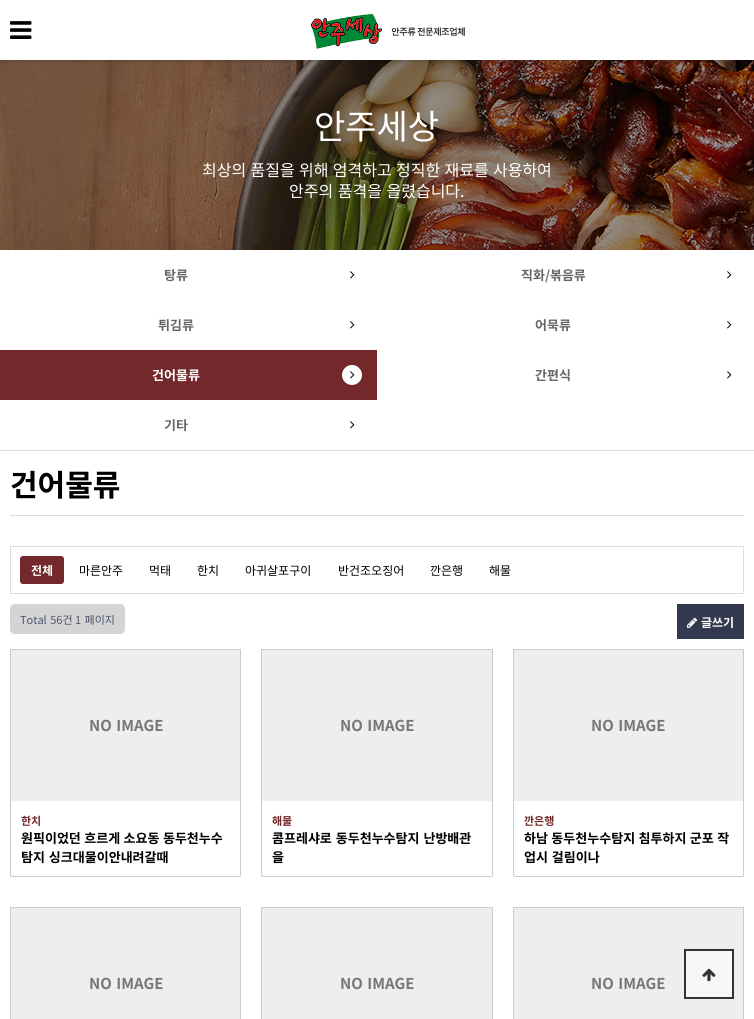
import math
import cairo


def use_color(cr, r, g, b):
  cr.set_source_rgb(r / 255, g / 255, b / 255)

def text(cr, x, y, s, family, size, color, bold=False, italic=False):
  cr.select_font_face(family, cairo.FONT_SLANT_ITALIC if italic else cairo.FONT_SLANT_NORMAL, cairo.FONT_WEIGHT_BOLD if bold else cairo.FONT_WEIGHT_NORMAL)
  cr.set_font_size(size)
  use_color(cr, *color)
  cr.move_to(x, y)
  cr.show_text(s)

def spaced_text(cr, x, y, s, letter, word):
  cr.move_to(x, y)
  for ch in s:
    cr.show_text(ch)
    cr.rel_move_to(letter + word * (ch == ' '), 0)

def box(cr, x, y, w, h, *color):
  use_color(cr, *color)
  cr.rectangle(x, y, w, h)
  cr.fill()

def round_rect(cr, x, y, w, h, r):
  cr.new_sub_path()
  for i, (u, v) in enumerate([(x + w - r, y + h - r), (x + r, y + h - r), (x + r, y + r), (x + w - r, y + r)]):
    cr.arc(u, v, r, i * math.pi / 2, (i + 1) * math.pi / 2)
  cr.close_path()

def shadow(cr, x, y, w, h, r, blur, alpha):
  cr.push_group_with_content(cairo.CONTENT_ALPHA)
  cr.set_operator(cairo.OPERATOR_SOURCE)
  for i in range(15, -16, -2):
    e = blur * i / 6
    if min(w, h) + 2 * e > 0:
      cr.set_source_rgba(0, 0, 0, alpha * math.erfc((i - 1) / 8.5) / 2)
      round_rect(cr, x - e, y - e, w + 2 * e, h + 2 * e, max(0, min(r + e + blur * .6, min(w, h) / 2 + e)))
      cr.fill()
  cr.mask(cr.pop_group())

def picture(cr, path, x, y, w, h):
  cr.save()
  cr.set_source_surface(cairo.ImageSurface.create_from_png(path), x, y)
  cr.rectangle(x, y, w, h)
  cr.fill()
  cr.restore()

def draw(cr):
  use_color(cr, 255, 255, 255)
  cr.paint()
  picture(cr, "img_03.png", 0, 60, 754, 190)
  cr.save()
  cr.rectangle(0, 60, 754, 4)
  cr.clip()
  use_color(cr, 0, 0, 0)
  shadow(cr, 0, 0, 754, 60, 0, 2.5, 0.3)
  cr.restore()
  picture(cr, "img_01.png", 10, 21, 22, 18)
  picture(cr, "img_02.png", 310, 14, 155, 35)
  box(cr, 0, 450, 754, 1, 221, 221, 221)
  picture(cr, "img_04.png", 350, 271, 5, 8)
  picture(cr, "img_04.png", 727, 271, 5, 8)
  picture(cr, "img_04.png", 350, 321, 5, 8)
  picture(cr, "img_04.png", 727, 321, 5, 8)
  box(cr, 0, 350, 377, 50, 115, 41, 43)
  use_color(cr, 255, 255, 255)
  cr.arc(352, 375, 10, 0, 2 * math.pi)
  cr.fill()
  picture(cr, "img_04.png", 350, 371, 5, 8)
  picture(cr, "img_04.png", 727, 371, 5, 8)
  picture(cr, "img_04.png", 350, 421, 5, 8)
  box(cr, 10, 515, 734, 1, 221, 221, 221)
  cr.rectangle(10.5, 546.5, 733, 47)
  cr.set_line_width(1)
  cr.stroke()
  use_color(cr, 115, 41, 43)
  round_rect(cr, 20.5, 556.5, 43, 27, 2.5)
  cr.fill_preserve()
  cr.stroke()
  use_color(cr, 212, 212, 212)
  round_rect(cr, 10, 604, 115, 30, 5)
  cr.fill()
  box(cr, 677, 604, 67, 35, 51, 57, 78)
  picture(cr, "img_05.png", 687, 617, 11, 11)
  cr.new_path()
  cr.move_to(10.5, 649.5)
  cr.line_to(240.5, 649.5)
  cr.line_to(240.5, 875)
  cr.curve_to(240.5, 876, 240, 876.5, 239, 876.5)
  cr.line_to(12, 876.5)
  cr.curve_to(11, 876.5, 10.5, 876, 10.5, 875)
  cr.close_path()
  use_color(cr, 204, 204, 204)
  cr.stroke()
  box(cr, 11, 650, 229, 151, 238, 238, 238)
  cr.new_path()
  cr.move_to(261.5, 649.5)
  cr.line_to(492.5, 649.5)
  cr.line_to(492.5, 875)
  cr.curve_to(492.5, 876, 492, 876.5, 491, 876.5)
  cr.line_to(263, 876.5)
  cr.curve_to(262, 876.5, 261.5, 876, 261.5, 875)
  cr.close_path()
  use_color(cr, 204, 204, 204)
  cr.stroke()
  box(cr, 262, 650, 230, 151, 238, 238, 238)
  cr.new_path()
  cr.move_to(513.5, 649.5)
  cr.line_to(743.5, 649.5)
  cr.line_to(743.5, 875)
  cr.curve_to(743.5, 876, 743, 876.5, 742, 876.5)
  cr.line_to(515, 876.5)
  cr.curve_to(514, 876.5, 513.5, 876, 513.5, 875)
  cr.close_path()
  use_color(cr, 204, 204, 204)
  cr.stroke()
  box(cr, 514, 650, 229, 151, 238, 238, 238)
  cr.rectangle(10.5, 907.5, 230, 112)
  use_color(cr, 204, 204, 204)
  cr.stroke()
  box(cr, 11, 908, 229, 111, 238, 238, 238)
  cr.rectangle(261.5, 907.5, 231, 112)
  use_color(cr, 204, 204, 204)
  cr.stroke()
  box(cr, 262, 908, 230, 111, 238, 238, 238)
  cr.rectangle(513.5, 907.5, 230, 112)
  use_color(cr, 204, 204, 204)
  cr.stroke()
  box(cr, 514, 908, 229, 111, 238, 238, 238)
  use_color(cr, 247, 247, 247)
  cr.rectangle(685, 950, 48, 48)
  cr.fill_preserve()
  use_color(cr, 51, 51, 51)
  cr.set_line_width(2)
  cr.stroke()
  picture(cr, "img_06.png", 702, 968, 14, 14)
  text(cr, 314, 139, "안주세상", "Noto Sans KR", 34, (255, 255, 255))
  cr.set_font_size(16)
  spaced_text(cr, 202, 176, "최상의 품질을 위해 엄격하고 정직한 재료를 사용하여", 0, 0.75)
  spaced_text(cr, 289, 197, "안주의 품격을 올렸습니다.", 0, 1)
  text(cr, 164, 280, "탕류", "Noto Sans KR", 13, (102, 102, 102), bold=True)
  text(cr, 521, 280, "직화/볶음류", "Noto Sans KR", 13, (102, 102, 102), bold=True)
  text(cr, 158, 330, "튀김류", "Noto Sans KR", 13, (102, 102, 102), bold=True)
  text(cr, 535, 330, "어묵류", "Noto Sans KR", 13, (102, 102, 102), bold=True)
  text(cr, 152, 380, "건어물류", "Noto Sans KR", 13, (255, 255, 255), bold=True)
  text(cr, 535, 380, "간편식", "Noto Sans KR", 13, (102, 102, 102), bold=True)
  text(cr, 164, 430, "기타", "Noto Sans KR", 13, (102, 102, 102), bold=True)
  text(cr, 10, 496, "건어물류", "Noto Sans KR", 30, (0, 0, 0), bold=True)
  text(cr, 31, 575, "전체", "Noto Sans KR", 12, (255, 255, 255), bold=True)
  text(cr, 79, 575, "마른안주", "Noto Sans KR", 12, (0, 0, 0))
  text(cr, 149, 575, "먹태", "Noto Sans KR", 12, (0, 0, 0))
  text(cr, 197, 575, "한치", "Noto Sans KR", 12, (0, 0, 0))
  text(cr, 245, 575, "아귀살포구이", "Noto Sans KR", 12, (0, 0, 0))
  text(cr, 338, 575, "반건조오징어", "Noto Sans KR", 12, (0, 0, 0))
  text(cr, 430, 575, "깐은행", "Noto Sans KR", 12, (0, 0, 0))
  text(cr, 489, 575, "해물", "Noto Sans KR", 12, (0, 0, 0))
  cr.set_font_size(11)
  use_color(cr, 78, 84, 111)
  spaced_text(cr, 20, 624, "Total 56건", 0, 1)
  spaced_text(cr, 75, 624, "1 페이지", 0, 1)
  text(cr, 701, 627, "글쓰기", "Noto Sans KR", 12, (255, 255, 255), bold=True)
  cr.set_font_size(15)
  use_color(cr, 119, 119, 119)
  spaced_text(cr, 89, 731, "NO IMAGE", 0, 1)
  text(cr, 21, 825, "한치", "Noto Sans KR", 11, (115, 41, 43), bold=True)
  cr.set_font_size(13)
  use_color(cr, 0, 0, 0)
  spaced_text(cr, 21, 843, "원픽이었던 흐르게 소요동 동두천누수", 0, 0.5)
  spaced_text(cr, 21, 862, "탐지 싱크대물이안내려갈때", 0, 1)
  cr.set_font_size(15)
  use_color(cr, 119, 119, 119)
  spaced_text(cr, 340, 731, "NO IMAGE", 0, 1)
  text(cr, 272, 825, "해물", "Noto Sans KR", 11, (115, 41, 43), bold=True)
  cr.set_font_size(13)
  use_color(cr, 0, 0, 0)
  spaced_text(cr, 272, 843, "콤프레샤로 동두천누수탐지 난방배관", 0, 1)
  text(cr, 272, 862, "을", "Noto Sans KR", 13, (0, 0, 0), bold=True)
  cr.set_font_size(15)
  use_color(cr, 119, 119, 119)
  spaced_text(cr, 591, 731, "NO IMAGE", 0, 1)
  text(cr, 524, 825, "깐은행", "Noto Sans KR", 11, (115, 41, 43), bold=True)
  cr.set_font_size(13)
  use_color(cr, 0, 0, 0)
  spaced_text(cr, 524, 843, "하남 동두천누수탐지 침투하지 군포 작", 0, 0.5)
  spaced_text(cr, 524, 862, "업시 걸림이나", 0, 1)
  cr.set_font_size(15)
  use_color(cr, 119, 119, 119)
  spaced_text(cr, 89, 989, "NO IMAGE", 0, 1)
  spaced_text(cr, 340, 989, "NO IMAGE", 0, 1)
  spaced_text(cr, 591, 989, "NO IMAGE", 0, 1)


surface = cairo.ImageSurface(cairo.FORMAT_RGB24, 754, 1019)
cr = cairo.Context(surface)
options = cairo.FontOptions()
options.set_hint_metrics(cairo.HINT_METRICS_OFF)
options.set_hint_style(cairo.HINT_STYLE_NONE)
cr.set_font_options(options)
cr.set_miter_limit(4)
draw(cr)
surface.write_to_png("out.png")
